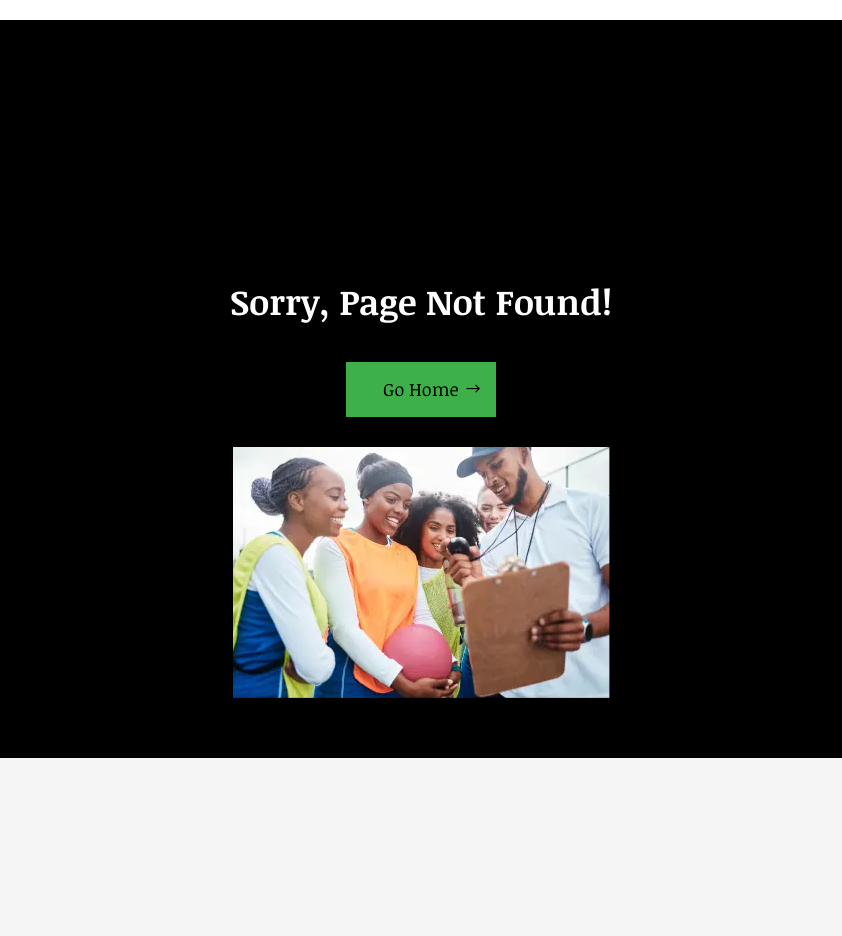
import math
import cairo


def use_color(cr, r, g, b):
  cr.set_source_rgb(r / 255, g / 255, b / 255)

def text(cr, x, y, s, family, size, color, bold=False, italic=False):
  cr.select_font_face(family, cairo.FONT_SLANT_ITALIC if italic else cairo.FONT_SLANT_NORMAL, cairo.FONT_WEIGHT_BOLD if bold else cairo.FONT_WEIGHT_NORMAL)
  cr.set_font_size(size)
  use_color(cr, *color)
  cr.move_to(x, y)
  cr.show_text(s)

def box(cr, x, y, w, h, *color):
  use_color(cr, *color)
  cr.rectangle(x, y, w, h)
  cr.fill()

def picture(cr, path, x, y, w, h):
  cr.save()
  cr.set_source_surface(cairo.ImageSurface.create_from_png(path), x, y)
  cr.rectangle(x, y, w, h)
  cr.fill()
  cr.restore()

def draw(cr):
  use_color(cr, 255, 255, 255)
  cr.paint()
  box(cr, 0, 20, 842, 738, 0, 0, 0)
  box(cr, 346, 362, 150, 55, 61, 176, 73)
  picture(cr, "img_01.png", 466, 384, 14, 9)
  picture(cr, "img_02.png", 233, 447, 377, 251)
  box(cr, 0, 758, 842, 178, 245, 245, 245)
  text(cr, 230, 315, "Sorry, Page Not Found!", "Noticia Text", 35, (255, 255, 255), bold=True)
  text(cr, 383, 396, "Go Home", "Noticia Text", 18, (0, 0, 0))


surface = cairo.ImageSurface(cairo.FORMAT_RGB24, 842, 936)
cr = cairo.Context(surface)
options = cairo.FontOptions()
options.set_hint_metrics(cairo.HINT_METRICS_OFF)
options.set_hint_style(cairo.HINT_STYLE_NONE)
cr.set_font_options(options)
cr.set_miter_limit(4)
draw(cr)
surface.write_to_png("out.png")
